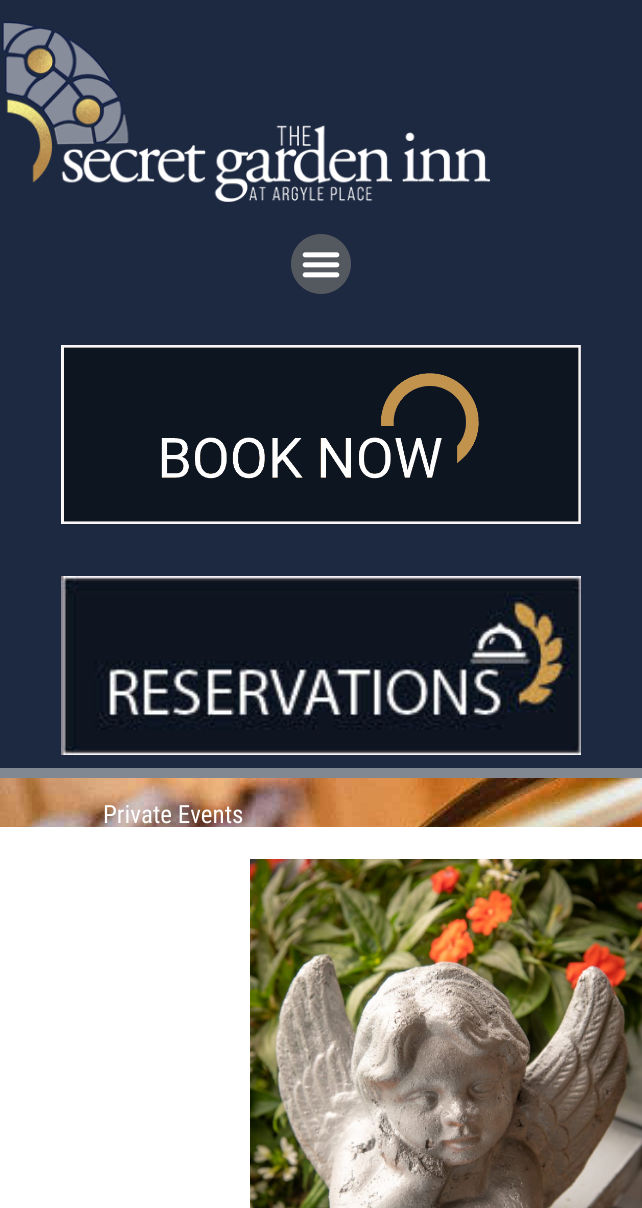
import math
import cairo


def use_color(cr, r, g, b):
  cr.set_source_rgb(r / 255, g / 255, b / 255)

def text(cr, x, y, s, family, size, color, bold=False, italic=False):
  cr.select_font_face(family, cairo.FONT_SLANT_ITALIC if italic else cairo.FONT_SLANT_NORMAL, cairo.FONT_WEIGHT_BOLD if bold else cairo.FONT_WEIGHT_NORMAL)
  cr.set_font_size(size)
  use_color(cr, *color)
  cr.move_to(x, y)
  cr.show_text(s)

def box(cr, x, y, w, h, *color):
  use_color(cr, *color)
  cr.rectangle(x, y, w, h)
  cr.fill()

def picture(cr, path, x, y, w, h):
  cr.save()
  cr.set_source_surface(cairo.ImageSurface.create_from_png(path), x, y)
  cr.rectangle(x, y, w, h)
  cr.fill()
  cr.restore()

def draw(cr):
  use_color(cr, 29, 40, 65)
  cr.paint()
  picture(cr, "img_01.png", 2, 21, 488, 181)
  use_color(cr, 84, 89, 95)
  cr.arc(321, 264, 30, 0, 2 * math.pi)
  cr.fill()
  picture(cr, "img_02.png", 302, 252, 38, 26)
  picture(cr, "img_03.png", 61, 345, 520, 179)
  picture(cr, "img_04.png", 61, 576, 520, 179)
  box(cr, 0, 768, 642, 10, 130, 136, 146)
  picture(cr, "img_05.png", 0, 778, 642, 49)
  box(cr, 0, 827, 642, 381, 255, 255, 255)
  picture(cr, "img_06.png", 250, 859, 392, 349)
  text(cr, 103, 823, "Private Events", "Roboto Condensed", 25, (255, 255, 255))


surface = cairo.ImageSurface(cairo.FORMAT_RGB24, 642, 1208)
cr = cairo.Context(surface)
options = cairo.FontOptions()
options.set_hint_metrics(cairo.HINT_METRICS_OFF)
options.set_hint_style(cairo.HINT_STYLE_NONE)
cr.set_font_options(options)
cr.set_miter_limit(4)
draw(cr)
surface.write_to_png("out.png")
